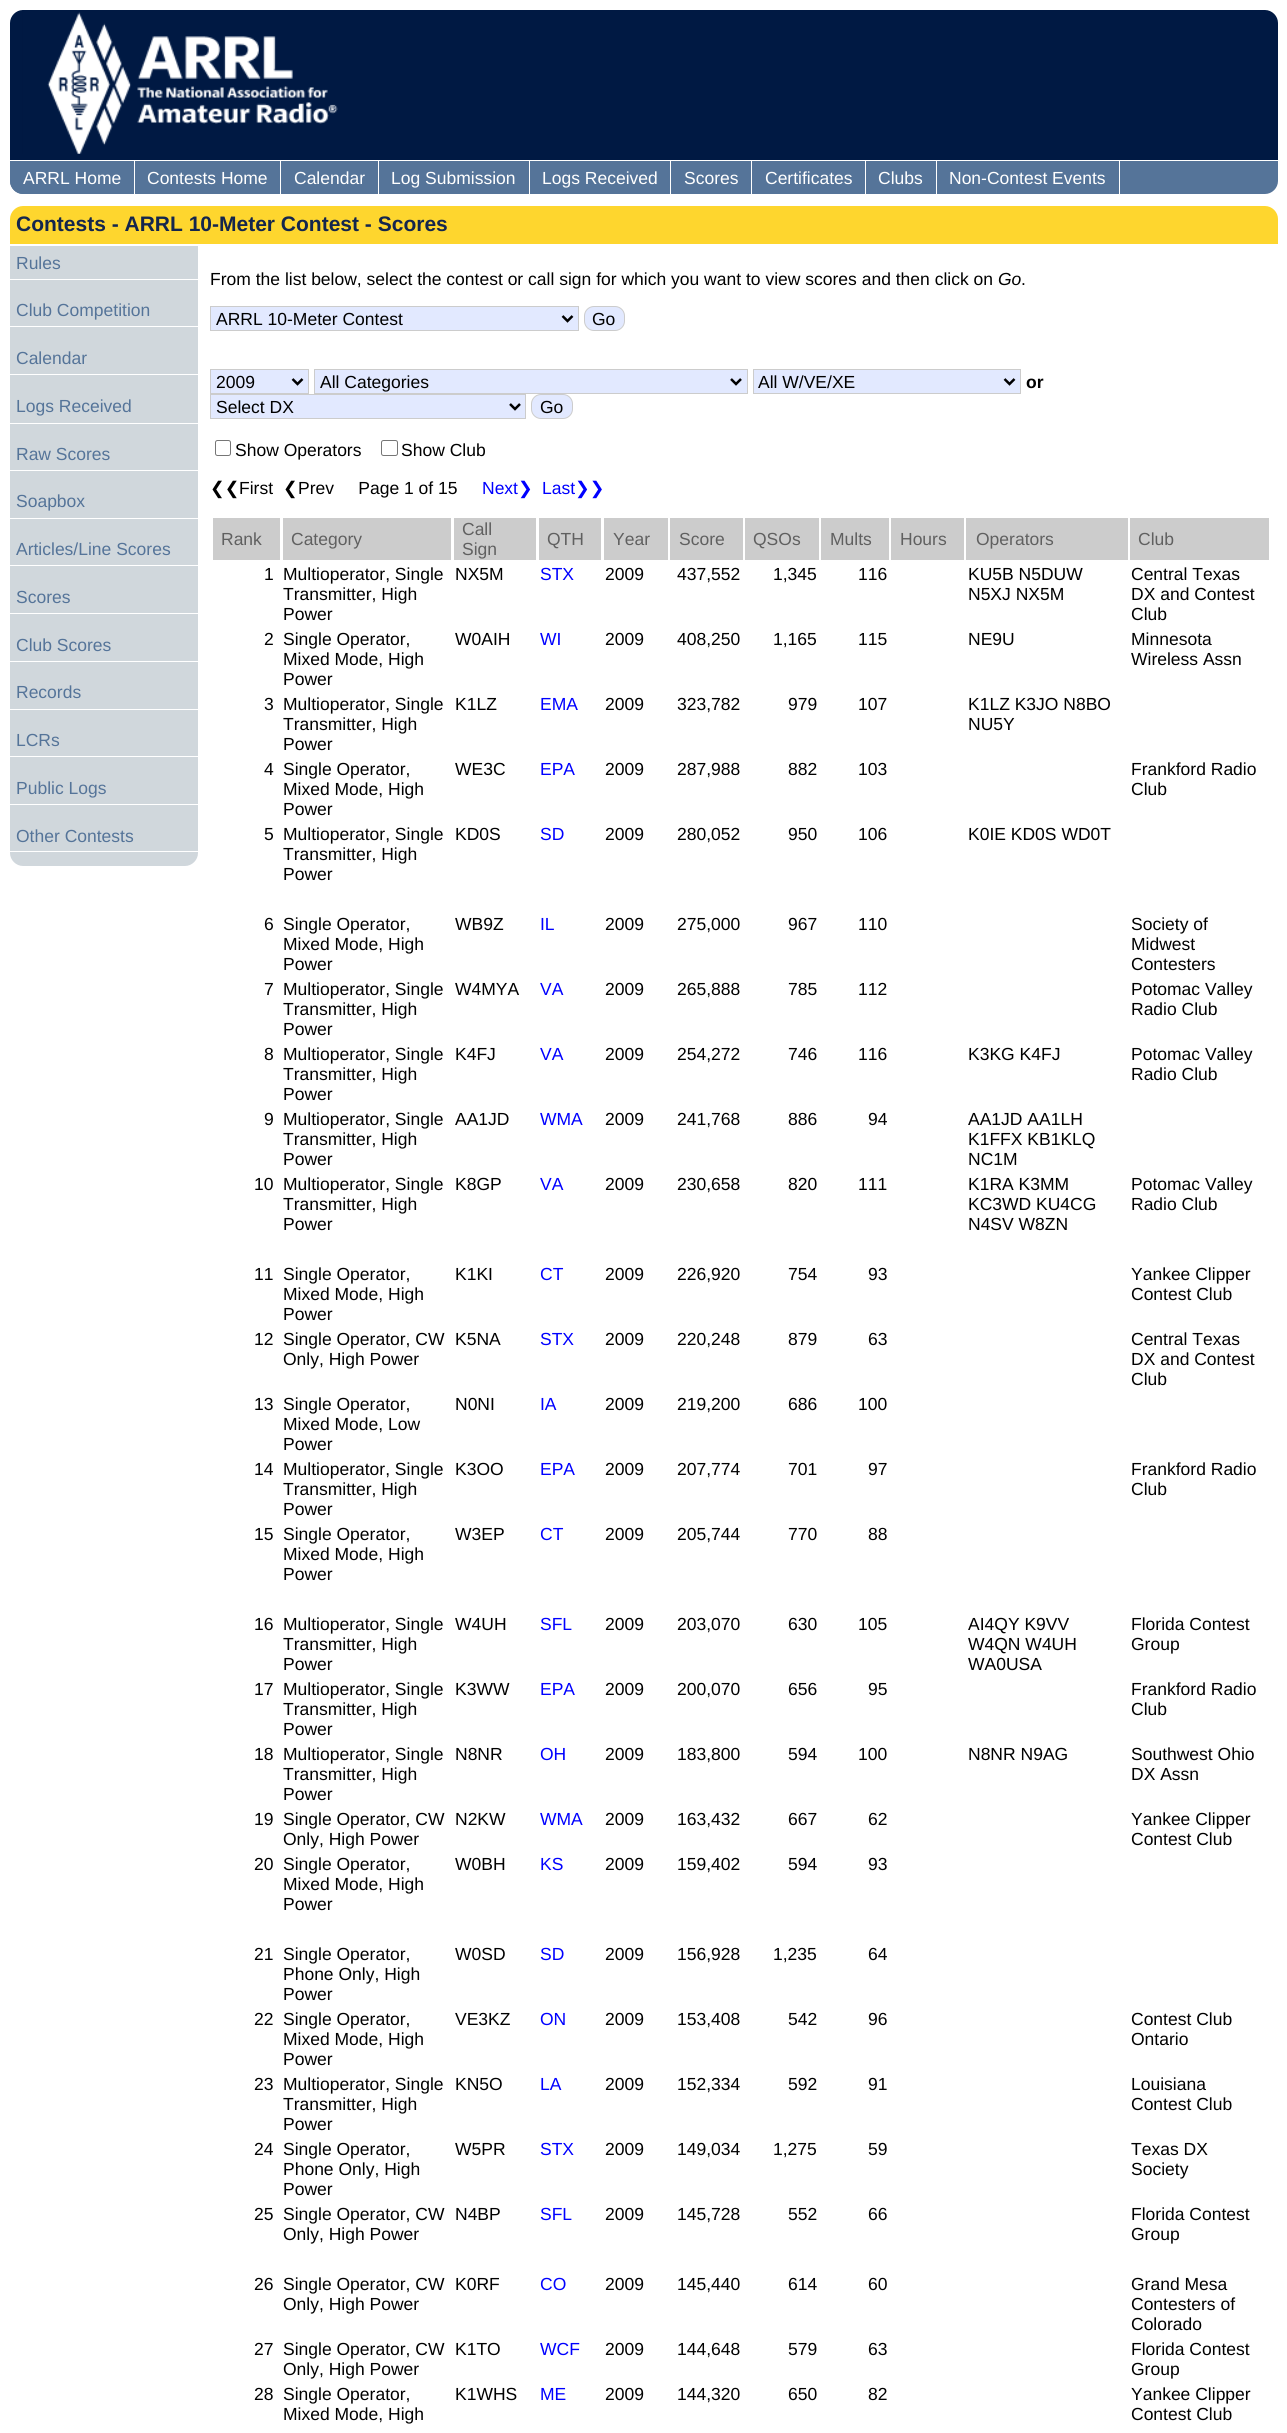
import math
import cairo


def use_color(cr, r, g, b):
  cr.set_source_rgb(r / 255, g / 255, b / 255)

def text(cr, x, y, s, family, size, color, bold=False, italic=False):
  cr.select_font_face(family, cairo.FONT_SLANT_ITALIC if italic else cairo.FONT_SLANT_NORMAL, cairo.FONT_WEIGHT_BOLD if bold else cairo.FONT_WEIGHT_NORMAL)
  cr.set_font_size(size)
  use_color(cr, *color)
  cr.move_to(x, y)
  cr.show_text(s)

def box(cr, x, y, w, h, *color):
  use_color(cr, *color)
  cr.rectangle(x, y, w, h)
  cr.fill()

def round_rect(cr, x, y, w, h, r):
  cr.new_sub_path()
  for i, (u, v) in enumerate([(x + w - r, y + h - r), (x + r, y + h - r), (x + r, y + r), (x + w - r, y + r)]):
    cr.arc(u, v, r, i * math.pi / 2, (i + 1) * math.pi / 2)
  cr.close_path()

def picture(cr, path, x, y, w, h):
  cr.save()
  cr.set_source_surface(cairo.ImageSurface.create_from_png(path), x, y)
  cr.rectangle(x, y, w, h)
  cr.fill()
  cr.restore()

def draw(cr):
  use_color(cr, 255, 255, 255)
  cr.paint()
  use_color(cr, 0, 25, 67)
  cr.new_path()
  cr.move_to(23, 10)
  cr.line_to(1265, 10)
  cr.curve_to(1272, 10, 1278, 16, 1278, 23)
  cr.line_to(1278, 160)
  cr.line_to(10, 160)
  cr.line_to(10, 23)
  cr.curve_to(10, 16, 16, 10, 23, 10)
  cr.close_path()
  cr.fill()
  picture(cr, "img_01.png", 22, 10, 316, 144)
  use_color(cr, 85, 116, 153)
  cr.new_path()
  cr.move_to(10, 161)
  cr.line_to(1278, 161)
  cr.line_to(1278, 181)
  cr.curve_to(1278, 188, 1272, 194, 1265, 194)
  cr.line_to(23, 194)
  cr.curve_to(16, 194, 10, 188, 10, 181)
  cr.close_path()
  cr.fill()
  cr.new_path()
  cr.move_to(10, 161)
  cr.line_to(135, 161)
  cr.line_to(135, 194)
  cr.line_to(23, 194)
  cr.curve_to(16, 194, 10, 188, 10, 181)
  cr.close_path()
  cr.fill()
  box(cr, 134, 161, 1, 33, 255, 255, 255)
  box(cr, 280, 161, 1, 33, 255, 255, 255)
  box(cr, 378, 161, 1, 33, 255, 255, 255)
  box(cr, 529, 161, 1, 33, 255, 255, 255)
  box(cr, 670, 161, 1, 33, 255, 255, 255)
  box(cr, 751, 161, 1, 33, 255, 255, 255)
  box(cr, 865, 161, 1, 33, 255, 255, 255)
  box(cr, 936, 161, 1, 33, 255, 255, 255)
  box(cr, 1119, 161, 1, 33, 255, 255, 255)
  use_color(cr, 254, 214, 46)
  cr.new_path()
  cr.move_to(23, 206)
  cr.line_to(1265, 206)
  cr.curve_to(1272, 206, 1278, 212, 1278, 219)
  cr.line_to(1278, 244)
  cr.line_to(10, 244)
  cr.line_to(10, 219)
  cr.curve_to(10, 212, 16, 206, 23, 206)
  cr.close_path()
  cr.fill()
  use_color(cr, 208, 215, 220)
  cr.new_path()
  cr.move_to(10, 246)
  cr.line_to(198, 246)
  cr.line_to(198, 853)
  cr.curve_to(198, 860, 192, 866, 185, 866)
  cr.line_to(23, 866)
  cr.curve_to(16, 866, 10, 860, 10, 853)
  cr.close_path()
  cr.fill()
  box(cr, 10, 279, 188, 1, 255, 255, 255)
  box(cr, 10, 326, 188, 1, 255, 255, 255)
  box(cr, 10, 374, 188, 1, 255, 255, 255)
  box(cr, 10, 423, 188, 1, 255, 255, 255)
  box(cr, 10, 470, 188, 1, 255, 255, 255)
  box(cr, 10, 518, 188, 1, 255, 255, 255)
  box(cr, 10, 565, 188, 1, 255, 255, 255)
  box(cr, 10, 613, 188, 1, 255, 255, 255)
  box(cr, 10, 661, 188, 1, 255, 255, 255)
  box(cr, 10, 709, 188, 1, 255, 255, 255)
  box(cr, 10, 756, 188, 1, 255, 255, 255)
  box(cr, 10, 804, 188, 1, 255, 255, 255)
  box(cr, 10, 851, 188, 1, 255, 255, 255)
  use_color(cr, 226, 233, 255)
  cr.rectangle(210.5, 306.5, 368, 24)
  cr.fill_preserve()
  use_color(cr, 204, 204, 204)
  cr.set_line_width(1)
  cr.stroke()
  cr.new_path()
  cr.move_to(562.5, 316)
  cr.line_to(567.5, 321)
  cr.line_to(572.5, 316)
  use_color(cr, 0, 0, 0)
  cr.set_line_width(2.5)
  cr.stroke()
  use_color(cr, 226, 233, 255)
  round_rect(cr, 584.5, 306.5, 40, 24, 9.5)
  cr.fill_preserve()
  use_color(cr, 204, 204, 204)
  cr.set_line_width(1)
  cr.stroke()
  use_color(cr, 226, 233, 255)
  cr.rectangle(210.5, 369.5, 98, 24)
  cr.fill_preserve()
  use_color(cr, 204, 204, 204)
  cr.stroke()
  cr.new_path()
  cr.move_to(292.5, 379)
  cr.line_to(297.5, 384)
  cr.line_to(302.5, 379)
  use_color(cr, 0, 0, 0)
  cr.set_line_width(2.5)
  cr.stroke()
  use_color(cr, 226, 233, 255)
  cr.rectangle(314.5, 369.5, 433, 24)
  cr.fill_preserve()
  use_color(cr, 204, 204, 204)
  cr.set_line_width(1)
  cr.stroke()
  cr.new_path()
  cr.move_to(731, 379)
  cr.line_to(736, 384)
  cr.line_to(741, 379)
  use_color(cr, 0, 0, 0)
  cr.set_line_width(2.5)
  cr.stroke()
  use_color(cr, 226, 233, 255)
  cr.rectangle(753.5, 369.5, 267, 24)
  cr.fill_preserve()
  use_color(cr, 204, 204, 204)
  cr.set_line_width(1)
  cr.stroke()
  cr.new_path()
  cr.move_to(1004.5, 379)
  cr.line_to(1009.5, 384)
  cr.line_to(1014.5, 379)
  use_color(cr, 0, 0, 0)
  cr.set_line_width(2.5)
  cr.stroke()
  use_color(cr, 226, 233, 255)
  cr.rectangle(210.5, 394.5, 315, 24)
  cr.fill_preserve()
  use_color(cr, 204, 204, 204)
  cr.set_line_width(1)
  cr.stroke()
  cr.new_path()
  cr.move_to(510, 404)
  cr.line_to(515, 409)
  cr.line_to(520, 404)
  use_color(cr, 0, 0, 0)
  cr.set_line_width(2.5)
  cr.stroke()
  use_color(cr, 226, 233, 255)
  round_rect(cr, 531.5, 394.5, 41, 24, 9.5)
  cr.fill_preserve()
  use_color(cr, 204, 204, 204)
  cr.set_line_width(1)
  cr.stroke()
  round_rect(cr, 215.5, 440.5, 15, 15, 2)
  use_color(cr, 118, 118, 118)
  cr.stroke()
  round_rect(cr, 381.5, 440.5, 16, 15, 2)
  cr.stroke()
  box(cr, 213, 518, 67, 42, 204, 204, 204)
  box(cr, 283, 518, 168, 42, 204, 204, 204)
  box(cr, 454, 518, 82, 42, 204, 204, 204)
  box(cr, 539, 518, 62, 42, 204, 204, 204)
  box(cr, 604, 518, 64, 42, 204, 204, 204)
  box(cr, 670, 518, 73, 42, 204, 204, 204)
  box(cr, 745, 518, 74, 42, 204, 204, 204)
  box(cr, 821, 518, 68, 42, 204, 204, 204)
  box(cr, 891, 518, 73, 42, 204, 204, 204)
  box(cr, 966, 518, 162, 42, 204, 204, 204)
  box(cr, 1130, 518, 139, 42, 204, 204, 204)
  text(cr, 23, 184, "ARRL Home", "Liberation Sans", 17.5, (255, 255, 255))
  text(cr, 147, 184, "Contests Home", "Liberation Sans", 17.5, (255, 255, 255))
  text(cr, 294, 184, "Calendar", "Liberation Sans", 17.5, (255, 255, 255))
  text(cr, 391, 184, "Log Submission", "Liberation Sans", 17.5, (255, 255, 255))
  text(cr, 542, 184, "Logs Received", "Liberation Sans", 17.5, (255, 255, 255))
  text(cr, 684, 184, "Scores", "Liberation Sans", 17.5, (255, 255, 255))
  text(cr, 765, 184, "Certificates", "Liberation Sans", 17.5, (255, 255, 255))
  text(cr, 878, 184, "Clubs", "Liberation Sans", 17.5, (255, 255, 255))
  text(cr, 949, 184, "Non-Contest Events", "Liberation Sans", 17.5, (255, 255, 255))
  text(cr, 16, 231, "Contests - ARRL 10-Meter Contest - Scores", "Liberation Sans", 21, (20, 38, 77), bold=True)
  text(cr, 16, 269, "Rules", "Liberation Sans", 17.5, (85, 116, 153))
  text(cr, 16, 316, "Club Competition", "Liberation Sans", 17.5, (85, 116, 153))
  text(cr, 16, 364, "Calendar", "Liberation Sans", 17.5, (85, 116, 153))
  text(cr, 16, 412, "Logs Received", "Liberation Sans", 17.5, (85, 116, 153))
  text(cr, 16, 460, "Raw Scores", "Liberation Sans", 17.5, (85, 116, 153))
  text(cr, 16, 507, "Soapbox", "Liberation Sans", 17.5, (85, 116, 153))
  text(cr, 16, 555, "Articles/Line Scores", "Liberation Sans", 17.5, (85, 116, 153))
  text(cr, 16, 603, "Scores", "Liberation Sans", 17.5, (85, 116, 153))
  text(cr, 16, 651, "Club Scores", "Liberation Sans", 17.5, (85, 116, 153))
  text(cr, 16, 698, "Records", "Liberation Sans", 17.5, (85, 116, 153))
  text(cr, 16, 746, "LCRs", "Liberation Sans", 17.5, (85, 116, 153))
  text(cr, 16, 794, "Public Logs", "Liberation Sans", 17.5, (85, 116, 153))
  text(cr, 16, 842, "Other Contests", "Liberation Sans", 17.5, (85, 116, 153))
  text(cr, 210, 285, "From the list below, select the contest or call sign for which you want to view scores and then click on", "Liberation Sans", 17.5, (0, 0, 0))
  text(cr, 998, 285, "Go", "Liberation Sans", 17.5, (0, 0, 0), italic=True)
  text(cr, 1021, 285, ".", "Liberation Sans", 17.5, (0, 0, 0))
  text(cr, 216, 325, "ARRL 10-Meter Contest", "Liberation Sans", 17.5, (0, 0, 0))
  text(cr, 592, 325, "Go", "Liberation Sans", 17.5, (0, 0, 0))
  text(cr, 216, 388, "2009", "Liberation Sans", 17.5, (0, 0, 0))
  text(cr, 320, 388, "All Categories", "Liberation Sans", 17.5, (0, 0, 0))
  text(cr, 758, 388, "All W/VE/XE", "Liberation Sans", 17.5, (0, 0, 0))
  text(cr, 1026, 388, "or", "Liberation Sans", 17.5, (0, 0, 0), bold=True)
  text(cr, 216, 413, "Select DX", "Liberation Sans", 17.5, (0, 0, 0))
  text(cr, 540, 413, "Go", "Liberation Sans", 17.5, (0, 0, 0))
  text(cr, 235, 456, "Show Operators", "Liberation Sans", 17.5, (0, 0, 0))
  text(cr, 401, 456, "Show Club", "Liberation Sans", 17.5, (0, 0, 0))
  text(cr, 210, 494, "❮❮", "DejaVu Sans", 17.5, (0, 0, 0))
  text(cr, 239, 494, "First", "Liberation Sans", 17.5, (0, 0, 0))
  text(cr, 283, 494, "❮", "DejaVu Sans", 17.5, (0, 0, 0))
  text(cr, 298, 494, "Prev     Page 1 of 15", "Liberation Sans", 17.5, (0, 0, 0))
  text(cr, 482, 494, "Next", "Liberation Sans", 17.5, (0, 0, 255))
  text(cr, 518, 494, "❯", "DejaVu Sans", 17.5, (0, 0, 255))
  text(cr, 542, 494, "Last", "Liberation Sans", 17.5, (0, 0, 255))
  text(cr, 575, 494, "❯❯", "DejaVu Sans", 17.5, (0, 0, 255))
  text(cr, 221, 545, "Rank", "Liberation Sans", 17.5, (96, 96, 96))
  text(cr, 291, 545, "Category", "Liberation Sans", 17.5, (96, 96, 96))
  text(cr, 462, 535, "Call", "Liberation Sans", 17.5, (96, 96, 96))
  text(cr, 462, 555, "Sign", "Liberation Sans", 17.5, (96, 96, 96))
  text(cr, 547, 545, "QTH", "Liberation Sans", 17.5, (96, 96, 96))
  text(cr, 613, 545, "Year", "Liberation Sans", 17.5, (96, 96, 96))
  text(cr, 679, 545, "Score", "Liberation Sans", 17.5, (96, 96, 96))
  text(cr, 753, 545, "QSOs", "Liberation Sans", 17.5, (96, 96, 96))
  text(cr, 830, 545, "Mults", "Liberation Sans", 17.5, (96, 96, 96))
  text(cr, 900, 545, "Hours", "Liberation Sans", 17.5, (96, 96, 96))
  text(cr, 976, 545, "Operators", "Liberation Sans", 17.5, (96, 96, 96))
  text(cr, 1138, 545, "Club", "Liberation Sans", 17.5, (96, 96, 96))
  text(cr, 264, 580, "1", "Liberation Sans", 17.5, (0, 0, 0))
  text(cr, 283, 580, "Multioperator, Single", "Liberation Sans", 17.5, (0, 0, 0))
  text(cr, 283, 600, "Transmitter, High", "Liberation Sans", 17.5, (0, 0, 0))
  text(cr, 283, 620, "Power", "Liberation Sans", 17.5, (0, 0, 0))
  text(cr, 455, 580, "NX5M", "Liberation Sans", 17.5, (0, 0, 0))
  text(cr, 540, 580, "STX", "Liberation Sans", 17.5, (0, 0, 255))
  text(cr, 605, 580, "2009", "Liberation Sans", 17.5, (0, 0, 0))
  text(cr, 677, 580, "437,552", "Liberation Sans", 17.5, (0, 0, 0))
  text(cr, 773, 580, "1,345", "Liberation Sans", 17.5, (0, 0, 0))
  text(cr, 858, 580, "116", "Liberation Sans", 17.5, (0, 0, 0))
  text(cr, 968, 580, "KU5B N5DUW", "Liberation Sans", 17.5, (0, 0, 0))
  text(cr, 968, 600, "N5XJ NX5M", "Liberation Sans", 17.5, (0, 0, 0))
  text(cr, 1131, 580, "Central Texas", "Liberation Sans", 17.5, (0, 0, 0))
  text(cr, 1131, 600, "DX and Contest", "Liberation Sans", 17.5, (0, 0, 0))
  text(cr, 1131, 620, "Club", "Liberation Sans", 17.5, (0, 0, 0))
  text(cr, 264, 645, "2", "Liberation Sans", 17.5, (0, 0, 0))
  text(cr, 283, 645, "Single Operator,", "Liberation Sans", 17.5, (0, 0, 0))
  text(cr, 283, 665, "Mixed Mode, High", "Liberation Sans", 17.5, (0, 0, 0))
  text(cr, 283, 685, "Power", "Liberation Sans", 17.5, (0, 0, 0))
  text(cr, 455, 645, "W0AIH", "Liberation Sans", 17.5, (0, 0, 0))
  text(cr, 540, 645, "WI", "Liberation Sans", 17.5, (0, 0, 255))
  text(cr, 605, 645, "2009", "Liberation Sans", 17.5, (0, 0, 0))
  text(cr, 677, 645, "408,250", "Liberation Sans", 17.5, (0, 0, 0))
  text(cr, 773, 645, "1,165", "Liberation Sans", 17.5, (0, 0, 0))
  text(cr, 858, 645, "115", "Liberation Sans", 17.5, (0, 0, 0))
  text(cr, 968, 645, "NE9U", "Liberation Sans", 17.5, (0, 0, 0))
  text(cr, 1131, 645, "Minnesota", "Liberation Sans", 17.5, (0, 0, 0))
  text(cr, 1131, 665, "Wireless Assn", "Liberation Sans", 17.5, (0, 0, 0))
  text(cr, 264, 710, "3", "Liberation Sans", 17.5, (0, 0, 0))
  text(cr, 283, 710, "Multioperator, Single", "Liberation Sans", 17.5, (0, 0, 0))
  text(cr, 283, 730, "Transmitter, High", "Liberation Sans", 17.5, (0, 0, 0))
  text(cr, 283, 750, "Power", "Liberation Sans", 17.5, (0, 0, 0))
  text(cr, 455, 710, "K1LZ", "Liberation Sans", 17.5, (0, 0, 0))
  text(cr, 540, 710, "EMA", "Liberation Sans", 17.5, (0, 0, 255))
  text(cr, 605, 710, "2009", "Liberation Sans", 17.5, (0, 0, 0))
  text(cr, 677, 710, "323,782", "Liberation Sans", 17.5, (0, 0, 0))
  text(cr, 788, 710, "979", "Liberation Sans", 17.5, (0, 0, 0))
  text(cr, 858, 710, "107", "Liberation Sans", 17.5, (0, 0, 0))
  text(cr, 968, 710, "K1LZ K3JO N8BO", "Liberation Sans", 17.5, (0, 0, 0))
  text(cr, 968, 730, "NU5Y", "Liberation Sans", 17.5, (0, 0, 0))
  text(cr, 264, 775, "4", "Liberation Sans", 17.5, (0, 0, 0))
  text(cr, 283, 775, "Single Operator,", "Liberation Sans", 17.5, (0, 0, 0))
  text(cr, 283, 795, "Mixed Mode, High", "Liberation Sans", 17.5, (0, 0, 0))
  text(cr, 283, 815, "Power", "Liberation Sans", 17.5, (0, 0, 0))
  text(cr, 455, 775, "WE3C", "Liberation Sans", 17.5, (0, 0, 0))
  text(cr, 540, 775, "EPA", "Liberation Sans", 17.5, (0, 0, 255))
  text(cr, 605, 775, "2009", "Liberation Sans", 17.5, (0, 0, 0))
  text(cr, 677, 775, "287,988", "Liberation Sans", 17.5, (0, 0, 0))
  text(cr, 788, 775, "882", "Liberation Sans", 17.5, (0, 0, 0))
  text(cr, 858, 775, "103", "Liberation Sans", 17.5, (0, 0, 0))
  text(cr, 1131, 775, "Frankford Radio", "Liberation Sans", 17.5, (0, 0, 0))
  text(cr, 1131, 795, "Club", "Liberation Sans", 17.5, (0, 0, 0))
  text(cr, 264, 840, "5", "Liberation Sans", 17.5, (0, 0, 0))
  text(cr, 283, 840, "Multioperator, Single", "Liberation Sans", 17.5, (0, 0, 0))
  text(cr, 283, 860, "Transmitter, High", "Liberation Sans", 17.5, (0, 0, 0))
  text(cr, 283, 880, "Power", "Liberation Sans", 17.5, (0, 0, 0))
  text(cr, 455, 840, "KD0S", "Liberation Sans", 17.5, (0, 0, 0))
  text(cr, 540, 840, "SD", "Liberation Sans", 17.5, (0, 0, 255))
  text(cr, 605, 840, "2009", "Liberation Sans", 17.5, (0, 0, 0))
  text(cr, 677, 840, "280,052", "Liberation Sans", 17.5, (0, 0, 0))
  text(cr, 788, 840, "950", "Liberation Sans", 17.5, (0, 0, 0))
  text(cr, 858, 840, "106", "Liberation Sans", 17.5, (0, 0, 0))
  text(cr, 968, 840, "K0IE KD0S WD0T", "Liberation Sans", 17.5, (0, 0, 0))
  text(cr, 264, 930, "6", "Liberation Sans", 17.5, (0, 0, 0))
  text(cr, 283, 930, "Single Operator,", "Liberation Sans", 17.5, (0, 0, 0))
  text(cr, 283, 950, "Mixed Mode, High", "Liberation Sans", 17.5, (0, 0, 0))
  text(cr, 283, 970, "Power", "Liberation Sans", 17.5, (0, 0, 0))
  text(cr, 455, 930, "WB9Z", "Liberation Sans", 17.5, (0, 0, 0))
  text(cr, 540, 930, "IL", "Liberation Sans", 17.5, (0, 0, 255))
  text(cr, 605, 930, "2009", "Liberation Sans", 17.5, (0, 0, 0))
  text(cr, 677, 930, "275,000", "Liberation Sans", 17.5, (0, 0, 0))
  text(cr, 788, 930, "967", "Liberation Sans", 17.5, (0, 0, 0))
  text(cr, 858, 930, "110", "Liberation Sans", 17.5, (0, 0, 0))
  text(cr, 1131, 930, "Society of", "Liberation Sans", 17.5, (0, 0, 0))
  text(cr, 1131, 950, "Midwest", "Liberation Sans", 17.5, (0, 0, 0))
  text(cr, 1131, 970, "Contesters", "Liberation Sans", 17.5, (0, 0, 0))
  text(cr, 264, 995, "7", "Liberation Sans", 17.5, (0, 0, 0))
  text(cr, 283, 995, "Multioperator, Single", "Liberation Sans", 17.5, (0, 0, 0))
  text(cr, 283, 1015, "Transmitter, High", "Liberation Sans", 17.5, (0, 0, 0))
  text(cr, 283, 1035, "Power", "Liberation Sans", 17.5, (0, 0, 0))
  text(cr, 455, 995, "W4MYA", "Liberation Sans", 17.5, (0, 0, 0))
  text(cr, 540, 995, "VA", "Liberation Sans", 17.5, (0, 0, 255))
  text(cr, 605, 995, "2009", "Liberation Sans", 17.5, (0, 0, 0))
  text(cr, 677, 995, "265,888", "Liberation Sans", 17.5, (0, 0, 0))
  text(cr, 788, 995, "785", "Liberation Sans", 17.5, (0, 0, 0))
  text(cr, 858, 995, "112", "Liberation Sans", 17.5, (0, 0, 0))
  text(cr, 1131, 995, "Potomac Valley", "Liberation Sans", 17.5, (0, 0, 0))
  text(cr, 1131, 1015, "Radio Club", "Liberation Sans", 17.5, (0, 0, 0))
  text(cr, 264, 1060, "8", "Liberation Sans", 17.5, (0, 0, 0))
  text(cr, 283, 1060, "Multioperator, Single", "Liberation Sans", 17.5, (0, 0, 0))
  text(cr, 283, 1080, "Transmitter, High", "Liberation Sans", 17.5, (0, 0, 0))
  text(cr, 283, 1100, "Power", "Liberation Sans", 17.5, (0, 0, 0))
  text(cr, 455, 1060, "K4FJ", "Liberation Sans", 17.5, (0, 0, 0))
  text(cr, 540, 1060, "VA", "Liberation Sans", 17.5, (0, 0, 255))
  text(cr, 605, 1060, "2009", "Liberation Sans", 17.5, (0, 0, 0))
  text(cr, 677, 1060, "254,272", "Liberation Sans", 17.5, (0, 0, 0))
  text(cr, 788, 1060, "746", "Liberation Sans", 17.5, (0, 0, 0))
  text(cr, 858, 1060, "116", "Liberation Sans", 17.5, (0, 0, 0))
  text(cr, 968, 1060, "K3KG K4FJ", "Liberation Sans", 17.5, (0, 0, 0))
  text(cr, 1131, 1060, "Potomac Valley", "Liberation Sans", 17.5, (0, 0, 0))
  text(cr, 1131, 1080, "Radio Club", "Liberation Sans", 17.5, (0, 0, 0))
  text(cr, 264, 1125, "9", "Liberation Sans", 17.5, (0, 0, 0))
  text(cr, 283, 1125, "Multioperator, Single", "Liberation Sans", 17.5, (0, 0, 0))
  text(cr, 283, 1145, "Transmitter, High", "Liberation Sans", 17.5, (0, 0, 0))
  text(cr, 283, 1165, "Power", "Liberation Sans", 17.5, (0, 0, 0))
  text(cr, 455, 1125, "AA1JD", "Liberation Sans", 17.5, (0, 0, 0))
  text(cr, 540, 1125, "WMA", "Liberation Sans", 17.5, (0, 0, 255))
  text(cr, 605, 1125, "2009", "Liberation Sans", 17.5, (0, 0, 0))
  text(cr, 677, 1125, "241,768", "Liberation Sans", 17.5, (0, 0, 0))
  text(cr, 788, 1125, "886", "Liberation Sans", 17.5, (0, 0, 0))
  text(cr, 868, 1125, "94", "Liberation Sans", 17.5, (0, 0, 0))
  text(cr, 968, 1125, "AA1JD AA1LH", "Liberation Sans", 17.5, (0, 0, 0))
  text(cr, 968, 1145, "K1FFX KB1KLQ", "Liberation Sans", 17.5, (0, 0, 0))
  text(cr, 968, 1165, "NC1M", "Liberation Sans", 17.5, (0, 0, 0))
  text(cr, 254, 1190, "10", "Liberation Sans", 17.5, (0, 0, 0))
  text(cr, 283, 1190, "Multioperator, Single", "Liberation Sans", 17.5, (0, 0, 0))
  text(cr, 283, 1210, "Transmitter, High", "Liberation Sans", 17.5, (0, 0, 0))
  text(cr, 283, 1230, "Power", "Liberation Sans", 17.5, (0, 0, 0))
  text(cr, 455, 1190, "K8GP", "Liberation Sans", 17.5, (0, 0, 0))
  text(cr, 540, 1190, "VA", "Liberation Sans", 17.5, (0, 0, 255))
  text(cr, 605, 1190, "2009", "Liberation Sans", 17.5, (0, 0, 0))
  text(cr, 677, 1190, "230,658", "Liberation Sans", 17.5, (0, 0, 0))
  text(cr, 788, 1190, "820", "Liberation Sans", 17.5, (0, 0, 0))
  text(cr, 858, 1190, "111", "Liberation Sans", 17.5, (0, 0, 0))
  text(cr, 968, 1190, "K1RA K3MM", "Liberation Sans", 17.5, (0, 0, 0))
  text(cr, 968, 1210, "KC3WD KU4CG", "Liberation Sans", 17.5, (0, 0, 0))
  text(cr, 968, 1230, "N4SV W8ZN", "Liberation Sans", 17.5, (0, 0, 0))
  text(cr, 1131, 1190, "Potomac Valley", "Liberation Sans", 17.5, (0, 0, 0))
  text(cr, 1131, 1210, "Radio Club", "Liberation Sans", 17.5, (0, 0, 0))
  text(cr, 254, 1280, "11", "Liberation Sans", 17.5, (0, 0, 0))
  text(cr, 283, 1280, "Single Operator,", "Liberation Sans", 17.5, (0, 0, 0))
  text(cr, 283, 1300, "Mixed Mode, High", "Liberation Sans", 17.5, (0, 0, 0))
  text(cr, 283, 1320, "Power", "Liberation Sans", 17.5, (0, 0, 0))
  text(cr, 455, 1280, "K1KI", "Liberation Sans", 17.5, (0, 0, 0))
  text(cr, 540, 1280, "CT", "Liberation Sans", 17.5, (0, 0, 255))
  text(cr, 605, 1280, "2009", "Liberation Sans", 17.5, (0, 0, 0))
  text(cr, 677, 1280, "226,920", "Liberation Sans", 17.5, (0, 0, 0))
  text(cr, 788, 1280, "754", "Liberation Sans", 17.5, (0, 0, 0))
  text(cr, 868, 1280, "93", "Liberation Sans", 17.5, (0, 0, 0))
  text(cr, 1131, 1280, "Yankee Clipper", "Liberation Sans", 17.5, (0, 0, 0))
  text(cr, 1131, 1300, "Contest Club", "Liberation Sans", 17.5, (0, 0, 0))
  text(cr, 254, 1345, "12", "Liberation Sans", 17.5, (0, 0, 0))
  text(cr, 283, 1345, "Single Operator, CW", "Liberation Sans", 17.5, (0, 0, 0))
  text(cr, 283, 1365, "Only, High Power", "Liberation Sans", 17.5, (0, 0, 0))
  text(cr, 455, 1345, "K5NA", "Liberation Sans", 17.5, (0, 0, 0))
  text(cr, 540, 1345, "STX", "Liberation Sans", 17.5, (0, 0, 255))
  text(cr, 605, 1345, "2009", "Liberation Sans", 17.5, (0, 0, 0))
  text(cr, 677, 1345, "220,248", "Liberation Sans", 17.5, (0, 0, 0))
  text(cr, 788, 1345, "879", "Liberation Sans", 17.5, (0, 0, 0))
  text(cr, 868, 1345, "63", "Liberation Sans", 17.5, (0, 0, 0))
  text(cr, 1131, 1345, "Central Texas", "Liberation Sans", 17.5, (0, 0, 0))
  text(cr, 1131, 1365, "DX and Contest", "Liberation Sans", 17.5, (0, 0, 0))
  text(cr, 1131, 1385, "Club", "Liberation Sans", 17.5, (0, 0, 0))
  text(cr, 254, 1410, "13", "Liberation Sans", 17.5, (0, 0, 0))
  text(cr, 283, 1410, "Single Operator,", "Liberation Sans", 17.5, (0, 0, 0))
  text(cr, 283, 1430, "Mixed Mode, Low", "Liberation Sans", 17.5, (0, 0, 0))
  text(cr, 283, 1450, "Power", "Liberation Sans", 17.5, (0, 0, 0))
  text(cr, 455, 1410, "N0NI", "Liberation Sans", 17.5, (0, 0, 0))
  text(cr, 540, 1410, "IA", "Liberation Sans", 17.5, (0, 0, 255))
  text(cr, 605, 1410, "2009", "Liberation Sans", 17.5, (0, 0, 0))
  text(cr, 677, 1410, "219,200", "Liberation Sans", 17.5, (0, 0, 0))
  text(cr, 788, 1410, "686", "Liberation Sans", 17.5, (0, 0, 0))
  text(cr, 858, 1410, "100", "Liberation Sans", 17.5, (0, 0, 0))
  text(cr, 254, 1475, "14", "Liberation Sans", 17.5, (0, 0, 0))
  text(cr, 283, 1475, "Multioperator, Single", "Liberation Sans", 17.5, (0, 0, 0))
  text(cr, 283, 1495, "Transmitter, High", "Liberation Sans", 17.5, (0, 0, 0))
  text(cr, 283, 1515, "Power", "Liberation Sans", 17.5, (0, 0, 0))
  text(cr, 455, 1475, "K3OO", "Liberation Sans", 17.5, (0, 0, 0))
  text(cr, 540, 1475, "EPA", "Liberation Sans", 17.5, (0, 0, 255))
  text(cr, 605, 1475, "2009", "Liberation Sans", 17.5, (0, 0, 0))
  text(cr, 677, 1475, "207,774", "Liberation Sans", 17.5, (0, 0, 0))
  text(cr, 788, 1475, "701", "Liberation Sans", 17.5, (0, 0, 0))
  text(cr, 868, 1475, "97", "Liberation Sans", 17.5, (0, 0, 0))
  text(cr, 1131, 1475, "Frankford Radio", "Liberation Sans", 17.5, (0, 0, 0))
  text(cr, 1131, 1495, "Club", "Liberation Sans", 17.5, (0, 0, 0))
  text(cr, 254, 1540, "15", "Liberation Sans", 17.5, (0, 0, 0))
  text(cr, 283, 1540, "Single Operator,", "Liberation Sans", 17.5, (0, 0, 0))
  text(cr, 283, 1560, "Mixed Mode, High", "Liberation Sans", 17.5, (0, 0, 0))
  text(cr, 283, 1580, "Power", "Liberation Sans", 17.5, (0, 0, 0))
  text(cr, 455, 1540, "W3EP", "Liberation Sans", 17.5, (0, 0, 0))
  text(cr, 540, 1540, "CT", "Liberation Sans", 17.5, (0, 0, 255))
  text(cr, 605, 1540, "2009", "Liberation Sans", 17.5, (0, 0, 0))
  text(cr, 677, 1540, "205,744", "Liberation Sans", 17.5, (0, 0, 0))
  text(cr, 788, 1540, "770", "Liberation Sans", 17.5, (0, 0, 0))
  text(cr, 868, 1540, "88", "Liberation Sans", 17.5, (0, 0, 0))
  text(cr, 254, 1630, "16", "Liberation Sans", 17.5, (0, 0, 0))
  text(cr, 283, 1630, "Multioperator, Single", "Liberation Sans", 17.5, (0, 0, 0))
  text(cr, 283, 1650, "Transmitter, High", "Liberation Sans", 17.5, (0, 0, 0))
  text(cr, 283, 1670, "Power", "Liberation Sans", 17.5, (0, 0, 0))
  text(cr, 455, 1630, "W4UH", "Liberation Sans", 17.5, (0, 0, 0))
  text(cr, 540, 1630, "SFL", "Liberation Sans", 17.5, (0, 0, 255))
  text(cr, 605, 1630, "2009", "Liberation Sans", 17.5, (0, 0, 0))
  text(cr, 677, 1630, "203,070", "Liberation Sans", 17.5, (0, 0, 0))
  text(cr, 788, 1630, "630", "Liberation Sans", 17.5, (0, 0, 0))
  text(cr, 858, 1630, "105", "Liberation Sans", 17.5, (0, 0, 0))
  text(cr, 968, 1630, "AI4QY K9VV", "Liberation Sans", 17.5, (0, 0, 0))
  text(cr, 968, 1650, "W4QN W4UH", "Liberation Sans", 17.5, (0, 0, 0))
  text(cr, 968, 1670, "WA0USA", "Liberation Sans", 17.5, (0, 0, 0))
  text(cr, 1131, 1630, "Florida Contest", "Liberation Sans", 17.5, (0, 0, 0))
  text(cr, 1131, 1650, "Group", "Liberation Sans", 17.5, (0, 0, 0))
  text(cr, 254, 1695, "17", "Liberation Sans", 17.5, (0, 0, 0))
  text(cr, 283, 1695, "Multioperator, Single", "Liberation Sans", 17.5, (0, 0, 0))
  text(cr, 283, 1715, "Transmitter, High", "Liberation Sans", 17.5, (0, 0, 0))
  text(cr, 283, 1735, "Power", "Liberation Sans", 17.5, (0, 0, 0))
  text(cr, 455, 1695, "K3WW", "Liberation Sans", 17.5, (0, 0, 0))
  text(cr, 540, 1695, "EPA", "Liberation Sans", 17.5, (0, 0, 255))
  text(cr, 605, 1695, "2009", "Liberation Sans", 17.5, (0, 0, 0))
  text(cr, 677, 1695, "200,070", "Liberation Sans", 17.5, (0, 0, 0))
  text(cr, 788, 1695, "656", "Liberation Sans", 17.5, (0, 0, 0))
  text(cr, 868, 1695, "95", "Liberation Sans", 17.5, (0, 0, 0))
  text(cr, 1131, 1695, "Frankford Radio", "Liberation Sans", 17.5, (0, 0, 0))
  text(cr, 1131, 1715, "Club", "Liberation Sans", 17.5, (0, 0, 0))
  text(cr, 254, 1760, "18", "Liberation Sans", 17.5, (0, 0, 0))
  text(cr, 283, 1760, "Multioperator, Single", "Liberation Sans", 17.5, (0, 0, 0))
  text(cr, 283, 1780, "Transmitter, High", "Liberation Sans", 17.5, (0, 0, 0))
  text(cr, 283, 1800, "Power", "Liberation Sans", 17.5, (0, 0, 0))
  text(cr, 455, 1760, "N8NR", "Liberation Sans", 17.5, (0, 0, 0))
  text(cr, 540, 1760, "OH", "Liberation Sans", 17.5, (0, 0, 255))
  text(cr, 605, 1760, "2009", "Liberation Sans", 17.5, (0, 0, 0))
  text(cr, 677, 1760, "183,800", "Liberation Sans", 17.5, (0, 0, 0))
  text(cr, 788, 1760, "594", "Liberation Sans", 17.5, (0, 0, 0))
  text(cr, 858, 1760, "100", "Liberation Sans", 17.5, (0, 0, 0))
  text(cr, 968, 1760, "N8NR N9AG", "Liberation Sans", 17.5, (0, 0, 0))
  text(cr, 1131, 1760, "Southwest Ohio", "Liberation Sans", 17.5, (0, 0, 0))
  text(cr, 1131, 1780, "DX Assn", "Liberation Sans", 17.5, (0, 0, 0))
  text(cr, 254, 1825, "19", "Liberation Sans", 17.5, (0, 0, 0))
  text(cr, 283, 1825, "Single Operator, CW", "Liberation Sans", 17.5, (0, 0, 0))
  text(cr, 283, 1845, "Only, High Power", "Liberation Sans", 17.5, (0, 0, 0))
  text(cr, 455, 1825, "N2KW", "Liberation Sans", 17.5, (0, 0, 0))
  text(cr, 540, 1825, "WMA", "Liberation Sans", 17.5, (0, 0, 255))
  text(cr, 605, 1825, "2009", "Liberation Sans", 17.5, (0, 0, 0))
  text(cr, 677, 1825, "163,432", "Liberation Sans", 17.5, (0, 0, 0))
  text(cr, 788, 1825, "667", "Liberation Sans", 17.5, (0, 0, 0))
  text(cr, 868, 1825, "62", "Liberation Sans", 17.5, (0, 0, 0))
  text(cr, 1131, 1825, "Yankee Clipper", "Liberation Sans", 17.5, (0, 0, 0))
  text(cr, 1131, 1845, "Contest Club", "Liberation Sans", 17.5, (0, 0, 0))
  text(cr, 254, 1870, "20", "Liberation Sans", 17.5, (0, 0, 0))
  text(cr, 283, 1870, "Single Operator,", "Liberation Sans", 17.5, (0, 0, 0))
  text(cr, 283, 1890, "Mixed Mode, High", "Liberation Sans", 17.5, (0, 0, 0))
  text(cr, 283, 1910, "Power", "Liberation Sans", 17.5, (0, 0, 0))
  text(cr, 455, 1870, "W0BH", "Liberation Sans", 17.5, (0, 0, 0))
  text(cr, 540, 1870, "KS", "Liberation Sans", 17.5, (0, 0, 255))
  text(cr, 605, 1870, "2009", "Liberation Sans", 17.5, (0, 0, 0))
  text(cr, 677, 1870, "159,402", "Liberation Sans", 17.5, (0, 0, 0))
  text(cr, 788, 1870, "594", "Liberation Sans", 17.5, (0, 0, 0))
  text(cr, 868, 1870, "93", "Liberation Sans", 17.5, (0, 0, 0))
  text(cr, 254, 1960, "21", "Liberation Sans", 17.5, (0, 0, 0))
  text(cr, 283, 1960, "Single Operator,", "Liberation Sans", 17.5, (0, 0, 0))
  text(cr, 283, 1980, "Phone Only, High", "Liberation Sans", 17.5, (0, 0, 0))
  text(cr, 283, 2000, "Power", "Liberation Sans", 17.5, (0, 0, 0))
  text(cr, 455, 1960, "W0SD", "Liberation Sans", 17.5, (0, 0, 0))
  text(cr, 540, 1960, "SD", "Liberation Sans", 17.5, (0, 0, 255))
  text(cr, 605, 1960, "2009", "Liberation Sans", 17.5, (0, 0, 0))
  text(cr, 677, 1960, "156,928", "Liberation Sans", 17.5, (0, 0, 0))
  text(cr, 773, 1960, "1,235", "Liberation Sans", 17.5, (0, 0, 0))
  text(cr, 868, 1960, "64", "Liberation Sans", 17.5, (0, 0, 0))
  text(cr, 254, 2025, "22", "Liberation Sans", 17.5, (0, 0, 0))
  text(cr, 283, 2025, "Single Operator,", "Liberation Sans", 17.5, (0, 0, 0))
  text(cr, 283, 2045, "Mixed Mode, High", "Liberation Sans", 17.5, (0, 0, 0))
  text(cr, 283, 2065, "Power", "Liberation Sans", 17.5, (0, 0, 0))
  text(cr, 455, 2025, "VE3KZ", "Liberation Sans", 17.5, (0, 0, 0))
  text(cr, 540, 2025, "ON", "Liberation Sans", 17.5, (0, 0, 255))
  text(cr, 605, 2025, "2009", "Liberation Sans", 17.5, (0, 0, 0))
  text(cr, 677, 2025, "153,408", "Liberation Sans", 17.5, (0, 0, 0))
  text(cr, 788, 2025, "542", "Liberation Sans", 17.5, (0, 0, 0))
  text(cr, 868, 2025, "96", "Liberation Sans", 17.5, (0, 0, 0))
  text(cr, 1131, 2025, "Contest Club", "Liberation Sans", 17.5, (0, 0, 0))
  text(cr, 1131, 2045, "Ontario", "Liberation Sans", 17.5, (0, 0, 0))
  text(cr, 254, 2090, "23", "Liberation Sans", 17.5, (0, 0, 0))
  text(cr, 283, 2090, "Multioperator, Single", "Liberation Sans", 17.5, (0, 0, 0))
  text(cr, 283, 2110, "Transmitter, High", "Liberation Sans", 17.5, (0, 0, 0))
  text(cr, 283, 2130, "Power", "Liberation Sans", 17.5, (0, 0, 0))
  text(cr, 455, 2090, "KN5O", "Liberation Sans", 17.5, (0, 0, 0))
  text(cr, 540, 2090, "LA", "Liberation Sans", 17.5, (0, 0, 255))
  text(cr, 605, 2090, "2009", "Liberation Sans", 17.5, (0, 0, 0))
  text(cr, 677, 2090, "152,334", "Liberation Sans", 17.5, (0, 0, 0))
  text(cr, 788, 2090, "592", "Liberation Sans", 17.5, (0, 0, 0))
  text(cr, 868, 2090, "91", "Liberation Sans", 17.5, (0, 0, 0))
  text(cr, 1131, 2090, "Louisiana", "Liberation Sans", 17.5, (0, 0, 0))
  text(cr, 1131, 2110, "Contest Club", "Liberation Sans", 17.5, (0, 0, 0))
  text(cr, 254, 2155, "24", "Liberation Sans", 17.5, (0, 0, 0))
  text(cr, 283, 2155, "Single Operator,", "Liberation Sans", 17.5, (0, 0, 0))
  text(cr, 283, 2175, "Phone Only, High", "Liberation Sans", 17.5, (0, 0, 0))
  text(cr, 283, 2195, "Power", "Liberation Sans", 17.5, (0, 0, 0))
  text(cr, 455, 2155, "W5PR", "Liberation Sans", 17.5, (0, 0, 0))
  text(cr, 540, 2155, "STX", "Liberation Sans", 17.5, (0, 0, 255))
  text(cr, 605, 2155, "2009", "Liberation Sans", 17.5, (0, 0, 0))
  text(cr, 677, 2155, "149,034", "Liberation Sans", 17.5, (0, 0, 0))
  text(cr, 773, 2155, "1,275", "Liberation Sans", 17.5, (0, 0, 0))
  text(cr, 868, 2155, "59", "Liberation Sans", 17.5, (0, 0, 0))
  text(cr, 1131, 2155, "Texas DX", "Liberation Sans", 17.5, (0, 0, 0))
  text(cr, 1131, 2175, "Society", "Liberation Sans", 17.5, (0, 0, 0))
  text(cr, 254, 2220, "25", "Liberation Sans", 17.5, (0, 0, 0))
  text(cr, 283, 2220, "Single Operator, CW", "Liberation Sans", 17.5, (0, 0, 0))
  text(cr, 283, 2240, "Only, High Power", "Liberation Sans", 17.5, (0, 0, 0))
  text(cr, 455, 2220, "N4BP", "Liberation Sans", 17.5, (0, 0, 0))
  text(cr, 540, 2220, "SFL", "Liberation Sans", 17.5, (0, 0, 255))
  text(cr, 605, 2220, "2009", "Liberation Sans", 17.5, (0, 0, 0))
  text(cr, 677, 2220, "145,728", "Liberation Sans", 17.5, (0, 0, 0))
  text(cr, 788, 2220, "552", "Liberation Sans", 17.5, (0, 0, 0))
  text(cr, 868, 2220, "66", "Liberation Sans", 17.5, (0, 0, 0))
  text(cr, 1131, 2220, "Florida Contest", "Liberation Sans", 17.5, (0, 0, 0))
  text(cr, 1131, 2240, "Group", "Liberation Sans", 17.5, (0, 0, 0))
  text(cr, 254, 2290, "26", "Liberation Sans", 17.5, (0, 0, 0))
  text(cr, 283, 2290, "Single Operator, CW", "Liberation Sans", 17.5, (0, 0, 0))
  text(cr, 283, 2310, "Only, High Power", "Liberation Sans", 17.5, (0, 0, 0))
  text(cr, 455, 2290, "K0RF", "Liberation Sans", 17.5, (0, 0, 0))
  text(cr, 540, 2290, "CO", "Liberation Sans", 17.5, (0, 0, 255))
  text(cr, 605, 2290, "2009", "Liberation Sans", 17.5, (0, 0, 0))
  text(cr, 677, 2290, "145,440", "Liberation Sans", 17.5, (0, 0, 0))
  text(cr, 788, 2290, "614", "Liberation Sans", 17.5, (0, 0, 0))
  text(cr, 868, 2290, "60", "Liberation Sans", 17.5, (0, 0, 0))
  text(cr, 1131, 2290, "Grand Mesa", "Liberation Sans", 17.5, (0, 0, 0))
  text(cr, 1131, 2310, "Contesters of", "Liberation Sans", 17.5, (0, 0, 0))
  text(cr, 1131, 2330, "Colorado", "Liberation Sans", 17.5, (0, 0, 0))
  text(cr, 254, 2355, "27", "Liberation Sans", 17.5, (0, 0, 0))
  text(cr, 283, 2355, "Single Operator, CW", "Liberation Sans", 17.5, (0, 0, 0))
  text(cr, 283, 2375, "Only, High Power", "Liberation Sans", 17.5, (0, 0, 0))
  text(cr, 455, 2355, "K1TO", "Liberation Sans", 17.5, (0, 0, 0))
  text(cr, 540, 2355, "WCF", "Liberation Sans", 17.5, (0, 0, 255))
  text(cr, 605, 2355, "2009", "Liberation Sans", 17.5, (0, 0, 0))
  text(cr, 677, 2355, "144,648", "Liberation Sans", 17.5, (0, 0, 0))
  text(cr, 788, 2355, "579", "Liberation Sans", 17.5, (0, 0, 0))
  text(cr, 868, 2355, "63", "Liberation Sans", 17.5, (0, 0, 0))
  text(cr, 1131, 2355, "Florida Contest", "Liberation Sans", 17.5, (0, 0, 0))
  text(cr, 1131, 2375, "Group", "Liberation Sans", 17.5, (0, 0, 0))
  text(cr, 254, 2400, "28", "Liberation Sans", 17.5, (0, 0, 0))
  text(cr, 283, 2400, "Single Operator,", "Liberation Sans", 17.5, (0, 0, 0))
  text(cr, 283, 2420, "Mixed Mode, High", "Liberation Sans", 17.5, (0, 0, 0))
  text(cr, 455, 2400, "K1WHS", "Liberation Sans", 17.5, (0, 0, 0))
  text(cr, 540, 2400, "ME", "Liberation Sans", 17.5, (0, 0, 255))
  text(cr, 605, 2400, "2009", "Liberation Sans", 17.5, (0, 0, 0))
  text(cr, 677, 2400, "144,320", "Liberation Sans", 17.5, (0, 0, 0))
  text(cr, 788, 2400, "650", "Liberation Sans", 17.5, (0, 0, 0))
  text(cr, 868, 2400, "82", "Liberation Sans", 17.5, (0, 0, 0))
  text(cr, 1131, 2400, "Yankee Clipper", "Liberation Sans", 17.5, (0, 0, 0))
  text(cr, 1131, 2420, "Contest Club", "Liberation Sans", 17.5, (0, 0, 0))


surface = cairo.ImageSurface(cairo.FORMAT_RGB24, 1287, 2433)
cr = cairo.Context(surface)
options = cairo.FontOptions()
options.set_hint_metrics(cairo.HINT_METRICS_OFF)
options.set_hint_style(cairo.HINT_STYLE_NONE)
cr.set_font_options(options)
cr.set_miter_limit(4)
draw(cr)
surface.write_to_png("out.png")
